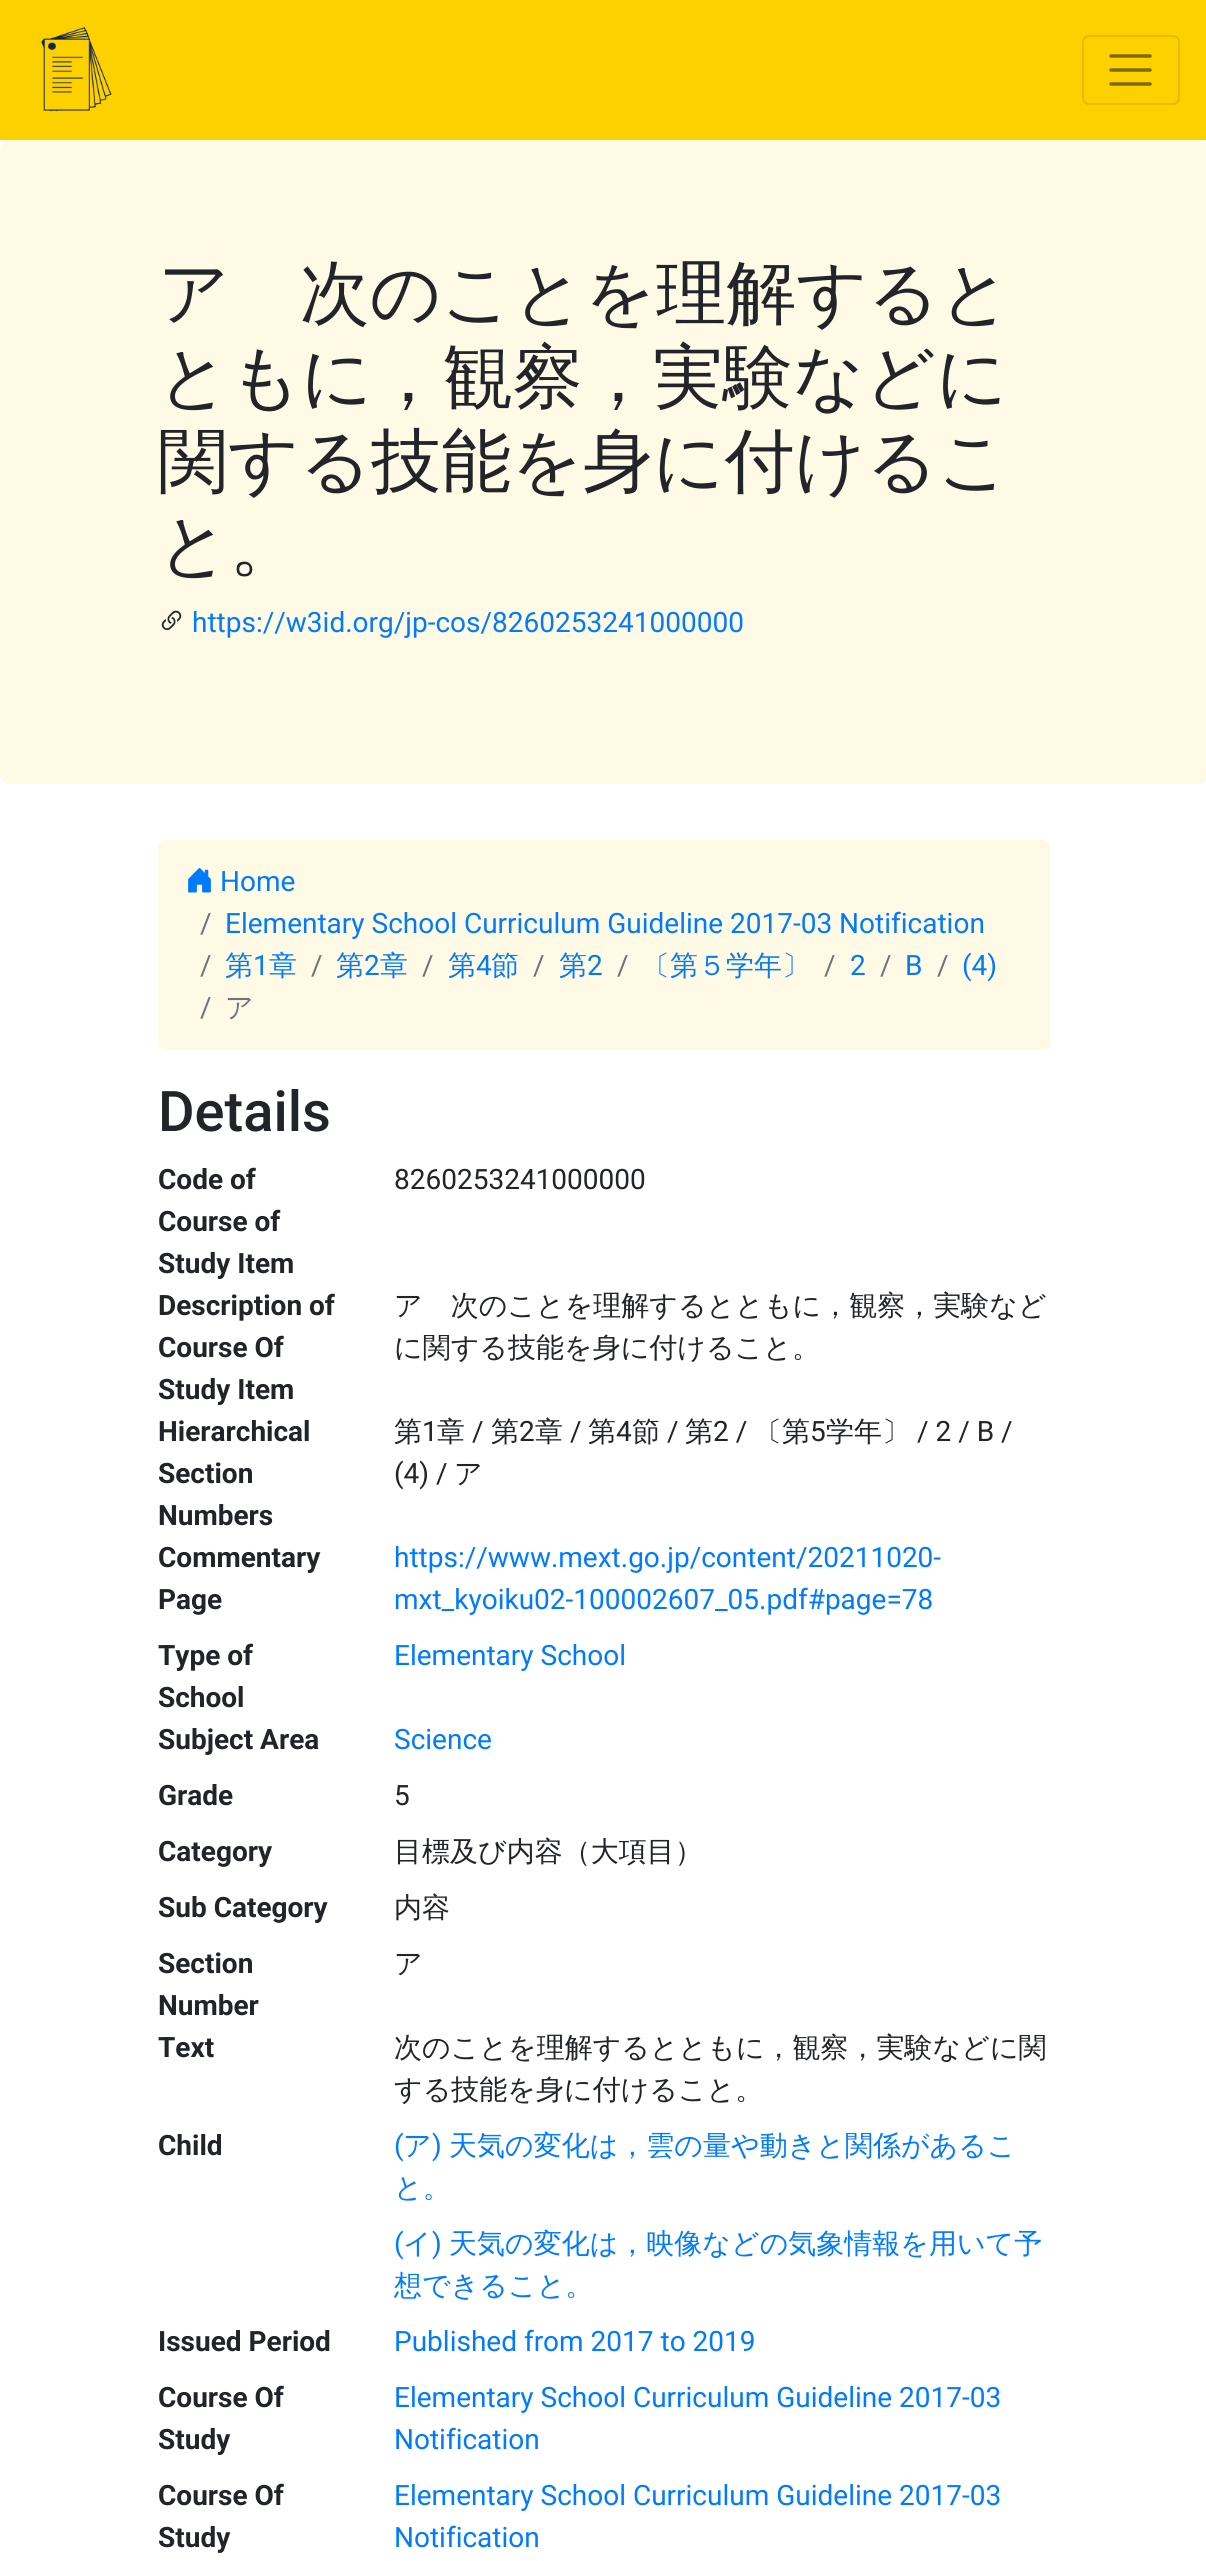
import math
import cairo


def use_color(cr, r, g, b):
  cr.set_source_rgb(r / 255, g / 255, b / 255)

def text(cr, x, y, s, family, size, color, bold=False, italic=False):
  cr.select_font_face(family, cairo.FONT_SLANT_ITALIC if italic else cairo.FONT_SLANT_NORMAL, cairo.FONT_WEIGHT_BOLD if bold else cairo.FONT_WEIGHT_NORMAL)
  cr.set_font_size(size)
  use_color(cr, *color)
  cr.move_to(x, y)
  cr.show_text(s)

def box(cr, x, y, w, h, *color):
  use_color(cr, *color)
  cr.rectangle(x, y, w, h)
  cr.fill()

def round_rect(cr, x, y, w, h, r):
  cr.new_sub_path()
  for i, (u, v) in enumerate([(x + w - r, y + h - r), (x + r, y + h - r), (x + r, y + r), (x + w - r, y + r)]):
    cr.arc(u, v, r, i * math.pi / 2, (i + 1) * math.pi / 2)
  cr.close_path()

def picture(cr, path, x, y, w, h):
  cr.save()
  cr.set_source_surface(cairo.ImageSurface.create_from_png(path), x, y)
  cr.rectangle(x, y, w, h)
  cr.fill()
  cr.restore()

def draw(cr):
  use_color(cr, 255, 255, 255)
  cr.paint()
  box(cr, 0, 0, 1206, 140, 253, 208, 0)
  picture(cr, "img_01.png", 41, 27, 71, 85)
  round_rect(cr, 1083, 36, 96, 68, 6)
  use_color(cr, 228, 187, 0)
  cr.stroke()
  cr.new_path()
  cr.move_to(1111, 56)
  cr.line_to(1150, 56)
  cr.move_to(1111, 70)
  cr.line_to(1150, 70)
  cr.move_to(1111, 84)
  cr.line_to(1150, 84)
  use_color(cr, 127, 104, 0)
  cr.set_line_width(3.5)
  cr.set_line_cap(cairo.LINE_CAP_ROUND)
  cr.stroke()
  use_color(cr, 255, 250, 229)
  round_rect(cr, 0, 140, 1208, 644, 9)
  cr.fill()
  picture(cr, "img_02.png", 161, 610, 21, 20)
  round_rect(cr, 158, 840, 892, 210, 7)
  cr.fill()
  picture(cr, "img_03.png", 188, 868, 23, 25)
  text(cr, 158, 317, "ア　次のことを理解すると", "WenQuanYi Zen Hei Medium", 70, (33, 37, 41))
  text(cr, 158, 401, "ともに，観察，実験などに", "WenQuanYi Zen Hei Medium", 70, (33, 37, 41))
  text(cr, 158, 485, "関する技能を身に付けるこ", "WenQuanYi Zen Hei Medium", 70, (33, 37, 41))
  text(cr, 158, 569, "と。", "WenQuanYi Zen Hei Medium", 70, (33, 37, 41))
  text(cr, 192, 632, "https://w3id.org/jp-cos/8260253241000000", "Roboto", 28, (0, 123, 255))
  text(cr, 220, 891, "Home", "Roboto", 28, (0, 123, 255))
  text(cr, 200, 933, "/", "Roboto", 28, (108, 117, 125))
  text(cr, 225, 933, "Elementary School Curriculum Guideline 2017-03 Notification", "Roboto", 28, (0, 123, 255))
  text(cr, 200, 975, "/", "Roboto", 28, (108, 117, 125))
  text(cr, 225, 975, "第", "WenQuanYi Zen Hei Medium", 28, (0, 123, 255))
  text(cr, 253, 975, "1", "Roboto", 28, (0, 123, 255))
  text(cr, 269, 975, "章", "WenQuanYi Zen Hei Medium", 28, (0, 123, 255))
  text(cr, 311, 975, "/", "Roboto", 28, (108, 117, 125))
  text(cr, 336, 975, "第", "WenQuanYi Zen Hei Medium", 28, (0, 123, 255))
  text(cr, 364, 975, "2", "Roboto", 28, (0, 123, 255))
  text(cr, 380, 975, "章", "WenQuanYi Zen Hei Medium", 28, (0, 123, 255))
  text(cr, 422, 975, "/", "Roboto", 28, (108, 117, 125))
  text(cr, 448, 975, "第", "WenQuanYi Zen Hei Medium", 28, (0, 123, 255))
  text(cr, 476, 975, "4", "Roboto", 28, (0, 123, 255))
  text(cr, 491, 975, "節", "WenQuanYi Zen Hei Medium", 28, (0, 123, 255))
  text(cr, 533, 975, "/", "Roboto", 28, (108, 117, 125))
  text(cr, 559, 975, "第", "WenQuanYi Zen Hei Medium", 28, (0, 123, 255))
  text(cr, 587, 975, "2", "Roboto", 28, (0, 123, 255))
  text(cr, 617, 975, "/", "Roboto", 28, (108, 117, 125))
  text(cr, 642, 975, "〔第５学年〕", "WenQuanYi Zen Hei Medium", 28, (0, 123, 255))
  text(cr, 824, 975, "/", "Roboto", 28, (108, 117, 125))
  text(cr, 850, 975, "2", "Roboto", 28, (0, 123, 255))
  text(cr, 880, 975, "/", "Roboto", 28, (108, 117, 125))
  text(cr, 905, 975, "B", "Roboto", 28, (0, 123, 255))
  text(cr, 937, 975, "/", "Roboto", 28, (108, 117, 125))
  text(cr, 962, 975, "(4)", "Roboto", 28, (0, 123, 255))
  text(cr, 200, 1017, "/", "Roboto", 28, (108, 117, 125))
  text(cr, 225, 1017, "ア", "WenQuanYi Zen Hei Medium", 28, (108, 117, 125))
  text(cr, 158, 1131, "Details", "Roboto Medium", 56, (33, 37, 41))
  text(cr, 158, 1189, "Code of", "Roboto", 28, (33, 37, 41), bold=True)
  text(cr, 158, 1231, "Course of", "Roboto", 28, (33, 37, 41), bold=True)
  text(cr, 158, 1273, "Study Item", "Roboto", 28, (33, 37, 41), bold=True)
  text(cr, 394, 1189, "8260253241000000", "Roboto", 28, (33, 37, 41))
  text(cr, 158, 1315, "Description of", "Roboto", 28, (33, 37, 41), bold=True)
  text(cr, 158, 1357, "Course Of", "Roboto", 28, (33, 37, 41), bold=True)
  text(cr, 158, 1399, "Study Item", "Roboto", 28, (33, 37, 41), bold=True)
  text(cr, 394, 1315, "ア　次のことを理解するとともに，観察，実験など", "WenQuanYi Zen Hei Medium", 28, (33, 37, 41))
  text(cr, 394, 1357, "に関する技能を身に付けること。", "WenQuanYi Zen Hei Medium", 28, (33, 37, 41))
  text(cr, 158, 1441, "Hierarchical", "Roboto", 28, (33, 37, 41), bold=True)
  text(cr, 158, 1483, "Section", "Roboto", 28, (33, 37, 41), bold=True)
  text(cr, 158, 1525, "Numbers", "Roboto", 28, (33, 37, 41), bold=True)
  text(cr, 394, 1441, "第", "WenQuanYi Zen Hei Medium", 28, (33, 37, 41))
  text(cr, 422, 1441, "1", "Roboto", 28, (33, 37, 41))
  text(cr, 437, 1441, "章", "WenQuanYi Zen Hei Medium", 28, (33, 37, 41))
  text(cr, 472, 1441, "/", "Roboto", 28, (33, 37, 41))
  text(cr, 491, 1441, "第", "WenQuanYi Zen Hei Medium", 28, (33, 37, 41))
  text(cr, 519, 1441, "2", "Roboto", 28, (33, 37, 41))
  text(cr, 535, 1441, "章", "WenQuanYi Zen Hei Medium", 28, (33, 37, 41))
  text(cr, 570, 1441, "/", "Roboto", 28, (33, 37, 41))
  text(cr, 588, 1441, "第", "WenQuanYi Zen Hei Medium", 28, (33, 37, 41))
  text(cr, 616, 1441, "4", "Roboto", 28, (33, 37, 41))
  text(cr, 632, 1441, "節", "WenQuanYi Zen Hei Medium", 28, (33, 37, 41))
  text(cr, 667, 1441, "/", "Roboto", 28, (33, 37, 41))
  text(cr, 685, 1441, "第", "WenQuanYi Zen Hei Medium", 28, (33, 37, 41))
  text(cr, 713, 1441, "2 /", "Roboto", 28, (33, 37, 41))
  text(cr, 754, 1441, "〔第", "WenQuanYi Zen Hei Medium", 28, (33, 37, 41))
  text(cr, 810, 1441, "5", "Roboto", 28, (33, 37, 41))
  text(cr, 826, 1441, "学年〕", "WenQuanYi Zen Hei Medium", 28, (33, 37, 41))
  text(cr, 917, 1441, "/ 2 / B /", "Roboto", 28, (33, 37, 41))
  text(cr, 394, 1483, "(4) /", "Roboto", 28, (33, 37, 41))
  text(cr, 454, 1483, "ア", "WenQuanYi Zen Hei Medium", 28, (33, 37, 41))
  text(cr, 158, 1567, "Commentary", "Roboto", 28, (33, 37, 41), bold=True)
  text(cr, 158, 1609, "Page", "Roboto", 28, (33, 37, 41), bold=True)
  text(cr, 394, 1567, "https://www.mext.go.jp/content/20211020-", "Roboto", 28, (0, 123, 255))
  text(cr, 394, 1609, "mxt_kyoiku02-100002607_05.pdf#page=78", "Roboto", 28, (0, 123, 255))
  text(cr, 158, 1665, "Type of", "Roboto", 28, (33, 37, 41), bold=True)
  text(cr, 158, 1707, "School", "Roboto", 28, (33, 37, 41), bold=True)
  text(cr, 394, 1665, "Elementary School", "Roboto", 28, (0, 123, 255))
  text(cr, 158, 1749, "Subject Area", "Roboto", 28, (33, 37, 41), bold=True)
  text(cr, 394, 1749, "Science", "Roboto", 28, (0, 123, 255))
  text(cr, 158, 1805, "Grade", "Roboto", 28, (33, 37, 41), bold=True)
  text(cr, 394, 1805, "5", "Roboto", 28, (33, 37, 41))
  text(cr, 158, 1861, "Category", "Roboto", 28, (33, 37, 41), bold=True)
  text(cr, 394, 1861, "目標及び内容（大項目）", "WenQuanYi Zen Hei Medium", 28, (33, 37, 41))
  text(cr, 158, 1917, "Sub Category", "Roboto", 28, (33, 37, 41), bold=True)
  text(cr, 394, 1917, "内容", "WenQuanYi Zen Hei Medium", 28, (33, 37, 41))
  text(cr, 158, 1973, "Section", "Roboto", 28, (33, 37, 41), bold=True)
  text(cr, 158, 2015, "Number", "Roboto", 28, (33, 37, 41), bold=True)
  text(cr, 394, 1973, "ア", "WenQuanYi Zen Hei Medium", 28, (33, 37, 41))
  text(cr, 158, 2057, "Text", "Roboto", 28, (33, 37, 41), bold=True)
  text(cr, 394, 2057, "次のことを理解するとともに，観察，実験などに関", "WenQuanYi Zen Hei Medium", 28, (33, 37, 41))
  text(cr, 394, 2099, "する技能を身に付けること。", "WenQuanYi Zen Hei Medium", 28, (33, 37, 41))
  text(cr, 158, 2155, "Child", "Roboto", 28, (33, 37, 41), bold=True)
  text(cr, 394, 2155, "(", "Roboto", 28, (0, 123, 255))
  text(cr, 403, 2155, "ア", "WenQuanYi Zen Hei Medium", 28, (0, 123, 255))
  text(cr, 432, 2155, ")", "Roboto", 28, (0, 123, 255))
  text(cr, 449, 2155, "天気の変化は，雲の量や動きと関係があるこ", "WenQuanYi Zen Hei Medium", 28, (0, 123, 255))
  text(cr, 394, 2197, "と。", "WenQuanYi Zen Hei Medium", 28, (0, 123, 255))
  text(cr, 394, 2253, "(", "Roboto", 28, (0, 123, 255))
  text(cr, 403, 2253, "イ", "WenQuanYi Zen Hei Medium", 28, (0, 123, 255))
  text(cr, 432, 2253, ")", "Roboto", 28, (0, 123, 255))
  text(cr, 449, 2253, "天気の変化は，映像などの気象情報を用いて予", "WenQuanYi Zen Hei Medium", 28, (0, 123, 255))
  text(cr, 394, 2295, "想できること。", "WenQuanYi Zen Hei Medium", 28, (0, 123, 255))
  text(cr, 158, 2351, "Issued Period", "Roboto", 28, (33, 37, 41), bold=True)
  text(cr, 394, 2351, "Published from 2017 to 2019", "Roboto", 28, (0, 123, 255))
  text(cr, 158, 2407, "Course Of", "Roboto", 28, (33, 37, 41), bold=True)
  text(cr, 158, 2449, "Study", "Roboto", 28, (33, 37, 41), bold=True)
  text(cr, 394, 2407, "Elementary School Curriculum Guideline 2017-03", "Roboto", 28, (0, 123, 255))
  text(cr, 394, 2449, "Notification", "Roboto", 28, (0, 123, 255))
  text(cr, 158, 2505, "Course Of", "Roboto", 28, (33, 37, 41), bold=True)
  text(cr, 158, 2547, "Study", "Roboto", 28, (33, 37, 41), bold=True)
  text(cr, 394, 2505, "Elementary School Curriculum Guideline 2017-03", "Roboto", 28, (0, 123, 255))
  text(cr, 394, 2547, "Notification", "Roboto", 28, (0, 123, 255))


surface = cairo.ImageSurface(cairo.FORMAT_RGB24, 1206, 2561)
cr = cairo.Context(surface)
options = cairo.FontOptions()
options.set_hint_metrics(cairo.HINT_METRICS_OFF)
options.set_hint_style(cairo.HINT_STYLE_NONE)
cr.set_font_options(options)
cr.set_miter_limit(4)
draw(cr)
surface.write_to_png("out.png")
